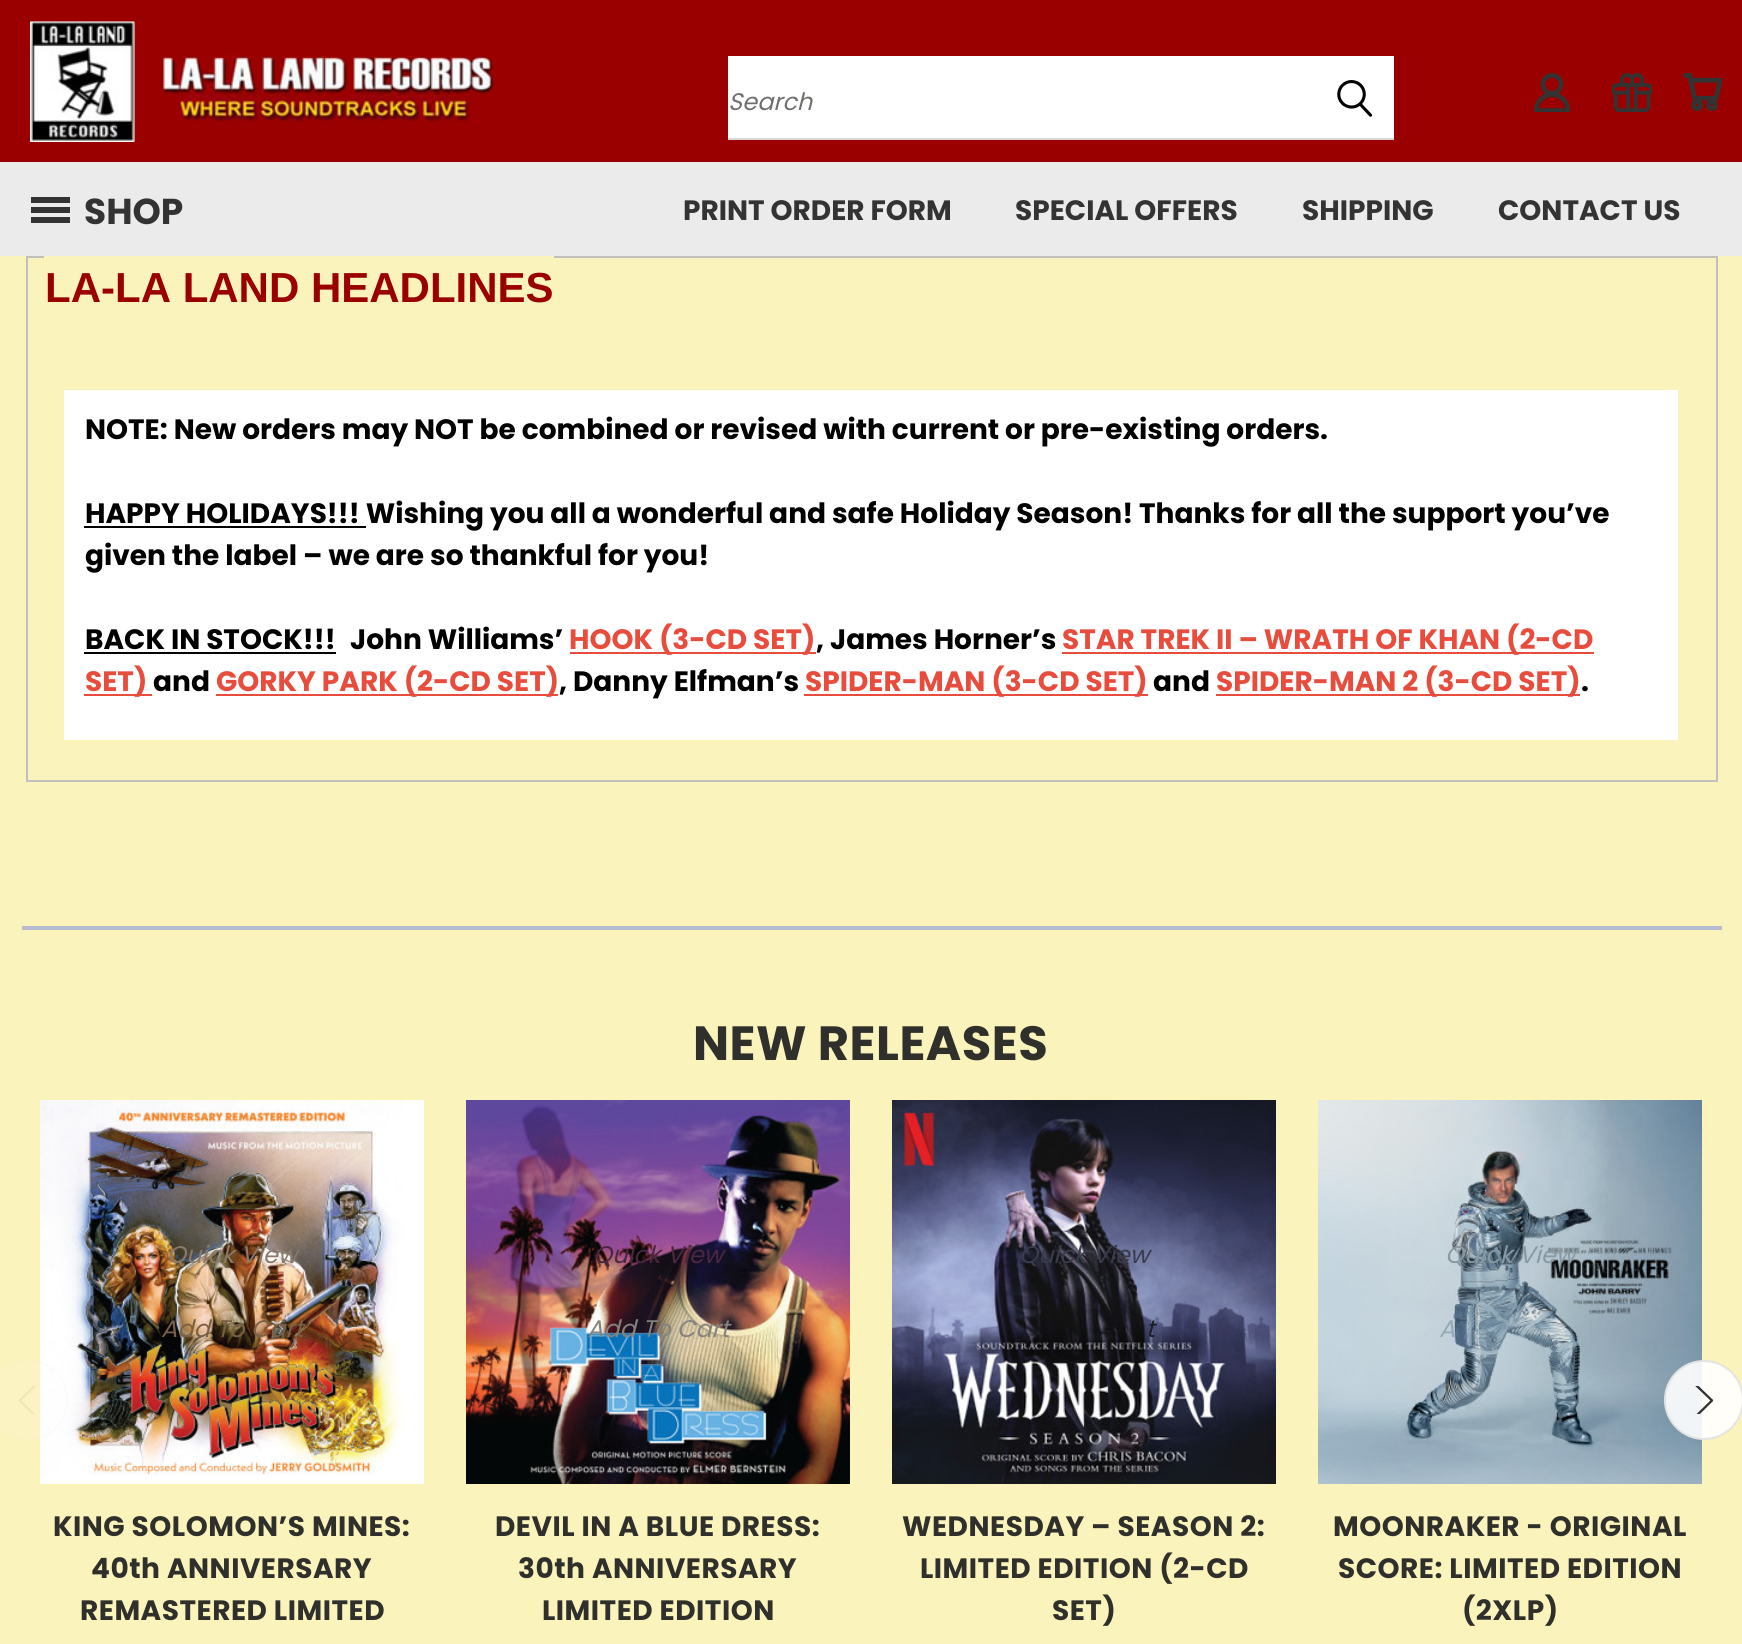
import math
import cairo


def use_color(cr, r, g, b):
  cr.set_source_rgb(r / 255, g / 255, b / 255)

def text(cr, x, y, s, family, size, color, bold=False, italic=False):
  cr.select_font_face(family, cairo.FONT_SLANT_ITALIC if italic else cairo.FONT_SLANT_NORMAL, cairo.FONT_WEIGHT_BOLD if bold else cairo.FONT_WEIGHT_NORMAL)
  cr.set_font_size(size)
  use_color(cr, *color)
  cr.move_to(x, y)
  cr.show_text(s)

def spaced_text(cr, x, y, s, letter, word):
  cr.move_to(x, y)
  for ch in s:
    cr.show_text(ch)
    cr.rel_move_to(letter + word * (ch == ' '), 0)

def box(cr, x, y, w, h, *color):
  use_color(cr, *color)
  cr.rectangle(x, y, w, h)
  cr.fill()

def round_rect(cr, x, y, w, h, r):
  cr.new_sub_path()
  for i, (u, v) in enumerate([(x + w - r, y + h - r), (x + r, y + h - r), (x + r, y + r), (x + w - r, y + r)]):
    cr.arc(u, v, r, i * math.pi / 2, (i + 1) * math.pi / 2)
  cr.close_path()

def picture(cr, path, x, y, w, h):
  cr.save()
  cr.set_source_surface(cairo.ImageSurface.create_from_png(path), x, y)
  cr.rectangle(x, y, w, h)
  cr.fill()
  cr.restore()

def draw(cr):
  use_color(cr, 251, 243, 188)
  cr.paint()
  box(cr, 0, 0, 1742, 162, 154, 0, 0)
  picture(cr, "img_01.png", 30, 21, 464, 121)
  box(cr, 728, 56, 666, 82, 255, 255, 255)
  box(cr, 728, 138, 666, 2, 215, 215, 215)
  picture(cr, "img_02.png", 1337, 80, 36, 37)
  picture(cr, "img_03.png", 1534, 73, 36, 39)
  picture(cr, "img_04.png", 1612, 73, 40, 39)
  picture(cr, "img_05.png", 1683, 73, 39, 38)
  box(cr, 0, 162, 1742, 94, 235, 235, 235)
  picture(cr, "img_06.png", 31, 197, 39, 26)
  cr.rectangle(27, 257, 1690, 524)
  use_color(cr, 192, 192, 192)
  cr.stroke()
  box(cr, 44, 256, 510, 2, 251, 243, 188)
  box(cr, 64, 390, 1614, 350, 255, 255, 255)
  box(cr, 84, 526, 282, 2, 0, 0, 0)
  box(cr, 84, 652, 252, 2, 0, 0, 0)
  box(cr, 570, 652, 246, 2, 231, 76, 60)
  box(cr, 1062, 652, 532, 2, 231, 76, 60)
  box(cr, 84, 694, 68, 2, 231, 76, 60)
  box(cr, 216, 694, 342, 2, 231, 76, 60)
  box(cr, 804, 694, 344, 2, 231, 76, 60)
  box(cr, 1216, 694, 364, 2, 231, 76, 60)
  box(cr, 22, 926, 1700, 4, 180, 186, 209)
  box(cr, 40, 1100, 384, 384, 255, 255, 255)
  picture(cr, "img_07.png", 40, 1100, 364, 375)
  cr.set_source_rgba(1, 1, 1, 0.09)
  round_rect(cr, -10, 1360, 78, 80, 39)
  cr.fill()
  round_rect(cr, -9, 1361, 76, 78, 38)
  cr.set_source_rgba(0.894, 0.89, 0.882, 0.1)
  cr.stroke()
  cr.save()
  cr.rectangle(18, 1386, 28, 28)
  cr.clip()
  cr.new_path()
  cr.move_to(44, 1377)
  cr.line_to(19.5, 1400.5)
  cr.line_to(44, 1424)
  use_color(cr, 239, 231, 180)
  cr.set_line_width(2.3)
  cr.set_line_cap(cairo.LINE_CAP_ROUND)
  cr.set_line_join(cairo.LINE_JOIN_ROUND)
  cr.stroke()
  cr.restore()
  picture(cr, "img_08.png", 466, 1100, 384, 384)
  picture(cr, "img_09.png", 892, 1100, 384, 384)
  picture(cr, "img_10.png", 1318, 1100, 384, 384)
  cr.set_source_rgba(1, 1, 1, 0.9)
  cr.arc(1704, 1400, 39, 0, 2 * math.pi)
  cr.fill_preserve()
  use_color(cr, 228, 227, 225)
  cr.stroke()
  cr.save()
  cr.rectangle(1686, 1386, 28, 28)
  cr.clip()
  cr.new_path()
  cr.move_to(1687.5, 1377)
  cr.line_to(1712, 1400.5)
  cr.line_to(1688, 1424)
  use_color(cr, 49, 49, 49)
  cr.set_line_width(2.3)
  cr.set_line_cap(cairo.LINE_CAP_ROUND)
  cr.set_line_join(cairo.LINE_JOIN_ROUND)
  cr.stroke()
  cr.restore()
  text(cr, 728, 110, "Search", "Poppins", 24, (112, 112, 110), italic=True)
  text(cr, 84, 224, "SHOP", "Poppins", 36, (51, 51, 51), bold=True)
  text(cr, 683, 220, "PRINT ORDER FORM", "Poppins", 28, (51, 51, 51), bold=True)
  text(cr, 1015, 220, "SPECIAL OFFERS", "Poppins", 28, (51, 51, 51), bold=True)
  text(cr, 1302, 220, "SHIPPING", "Poppins", 28, (51, 51, 51), bold=True)
  text(cr, 1498, 220, "CONTACT US", "Poppins", 28, (51, 51, 51), bold=True)
  text(cr, 45, 302, "LA-LA LAND HEADLINES", "Liberation Sans", 42, (154, 0, 0), bold=True)
  text(cr, 85, 439, "NOTE: New orders may NOT be combined or revised with current or pre-existing orders.", "Poppins", 28, (0, 0, 0), bold=True)
  text(cr, 85, 523, "HAPPY HOLIDAYS!!! Wishing you all a wonderful and safe Holiday Season! Thanks for all the support you’ve", "Poppins", 28, (0, 0, 0), bold=True)
  text(cr, 85, 565, "given the label – we are so thankful for you!", "Poppins", 28, (0, 0, 0), bold=True)
  text(cr, 85, 649, "BACK IN STOCK!!!", "Poppins", 28, (0, 0, 0), bold=True)
  text(cr, 350, 649, "John Williams’", "Poppins", 28, (0, 0, 0), bold=True)
  text(cr, 569, 649, "HOOK (3-CD SET)", "Poppins", 28, (231, 76, 60), bold=True)
  text(cr, 816, 649, ", James Horner’s", "Poppins", 28, (0, 0, 0), bold=True)
  text(cr, 1062, 649, "STAR TREK II – WRATH OF KHAN (2-CD", "Poppins", 28, (231, 76, 60), bold=True)
  text(cr, 85, 691, "SET)", "Poppins", 28, (231, 76, 60), bold=True)
  text(cr, 153, 691, "and", "Poppins", 28, (0, 0, 0), bold=True)
  text(cr, 216, 691, "GORKY PARK (2-CD SET)", "Poppins", 28, (231, 76, 60), bold=True)
  text(cr, 559, 691, ", Danny Elfman’s", "Poppins", 28, (0, 0, 0), bold=True)
  text(cr, 805, 691, "SPIDER-MAN (3-CD SET)", "Poppins", 28, (231, 76, 60), bold=True)
  text(cr, 1153, 691, "and", "Poppins", 28, (0, 0, 0), bold=True)
  text(cr, 1216, 691, "SPIDER-MAN 2 (3-CD SET)", "Poppins", 28, (231, 76, 60), bold=True)
  text(cr, 1581, 691, ".", "Poppins", 28, (0, 0, 0), bold=True)
  cr.set_font_size(48)
  use_color(cr, 47, 47, 43)
  spaced_text(cr, 693, 1060, "NEW RELEASES", 0.5, 0)
  text(cr, 167, 1263, "Quick View", "Poppins", 24, (139, 122, 105), italic=True)
  text(cr, 161, 1337, "Add To Cart", "Poppins", 24, (123, 96, 69), italic=True)
  cr.select_font_face("Poppins", cairo.FONT_SLANT_NORMAL, cairo.FONT_WEIGHT_BOLD)
  cr.set_font_size(28)
  use_color(cr, 47, 47, 43)
  spaced_text(cr, 53, 1536, "KING SOLOMON’S MINES:", 0.5, 0)
  spaced_text(cr, 91, 1578, "40th ANNIVERSARY", 0.5, 0)
  spaced_text(cr, 80, 1620, "REMASTERED LIMITED", 0.5, 0)
  text(cr, 593, 1263, "Quick View", "Poppins", 24, (74, 39, 64), italic=True)
  text(cr, 587, 1337, "Add To Cart", "Poppins", 24, (133, 131, 127), italic=True)
  cr.select_font_face("Poppins", cairo.FONT_SLANT_NORMAL, cairo.FONT_WEIGHT_BOLD)
  cr.set_font_size(28)
  use_color(cr, 47, 47, 43)
  spaced_text(cr, 495, 1536, "DEVIL IN A BLUE DRESS:", 0.5, 0)
  spaced_text(cr, 518, 1578, "30th ANNIVERSARY", 0.5, 0)
  spaced_text(cr, 542, 1620, "LIMITED EDITION", 0.5, 0)
  text(cr, 1019, 1263, "Quick View", "Poppins", 24, (58, 59, 76), italic=True)
  text(cr, 1146, 1337, "t", "Poppins", 24, (29, 29, 37), italic=True)
  cr.select_font_face("Poppins", cairo.FONT_SLANT_NORMAL, cairo.FONT_WEIGHT_BOLD)
  cr.set_font_size(28)
  use_color(cr, 47, 47, 43)
  spaced_text(cr, 902, 1536, "WEDNESDAY – SEASON 2:", 0.5, 0)
  spaced_text(cr, 920, 1578, "LIMITED EDITION (2-CD", 0.5, 0)
  spaced_text(cr, 1052, 1620, "SET)", 0.5, 0)
  text(cr, 1445, 1263, "Quick View", "Poppins", 24, (136, 153, 164), italic=True)
  text(cr, 1439, 1337, "A", "Poppins", 24, (149, 169, 182), italic=True)
  cr.select_font_face("Poppins", cairo.FONT_SLANT_NORMAL, cairo.FONT_WEIGHT_BOLD)
  cr.set_font_size(28)
  use_color(cr, 47, 47, 43)
  spaced_text(cr, 1333, 1536, "MOONRAKER - ORIGINAL", 0.5, 0)
  spaced_text(cr, 1338, 1578, "SCORE: LIMITED EDITION", 0.5, 0)
  spaced_text(cr, 1462, 1620, "(2XLP)", 0.5, 0)


surface = cairo.ImageSurface(cairo.FORMAT_RGB24, 1742, 1644)
cr = cairo.Context(surface)
options = cairo.FontOptions()
options.set_hint_metrics(cairo.HINT_METRICS_OFF)
options.set_hint_style(cairo.HINT_STYLE_NONE)
cr.set_font_options(options)
cr.set_miter_limit(4)
draw(cr)
surface.write_to_png("out.png")
